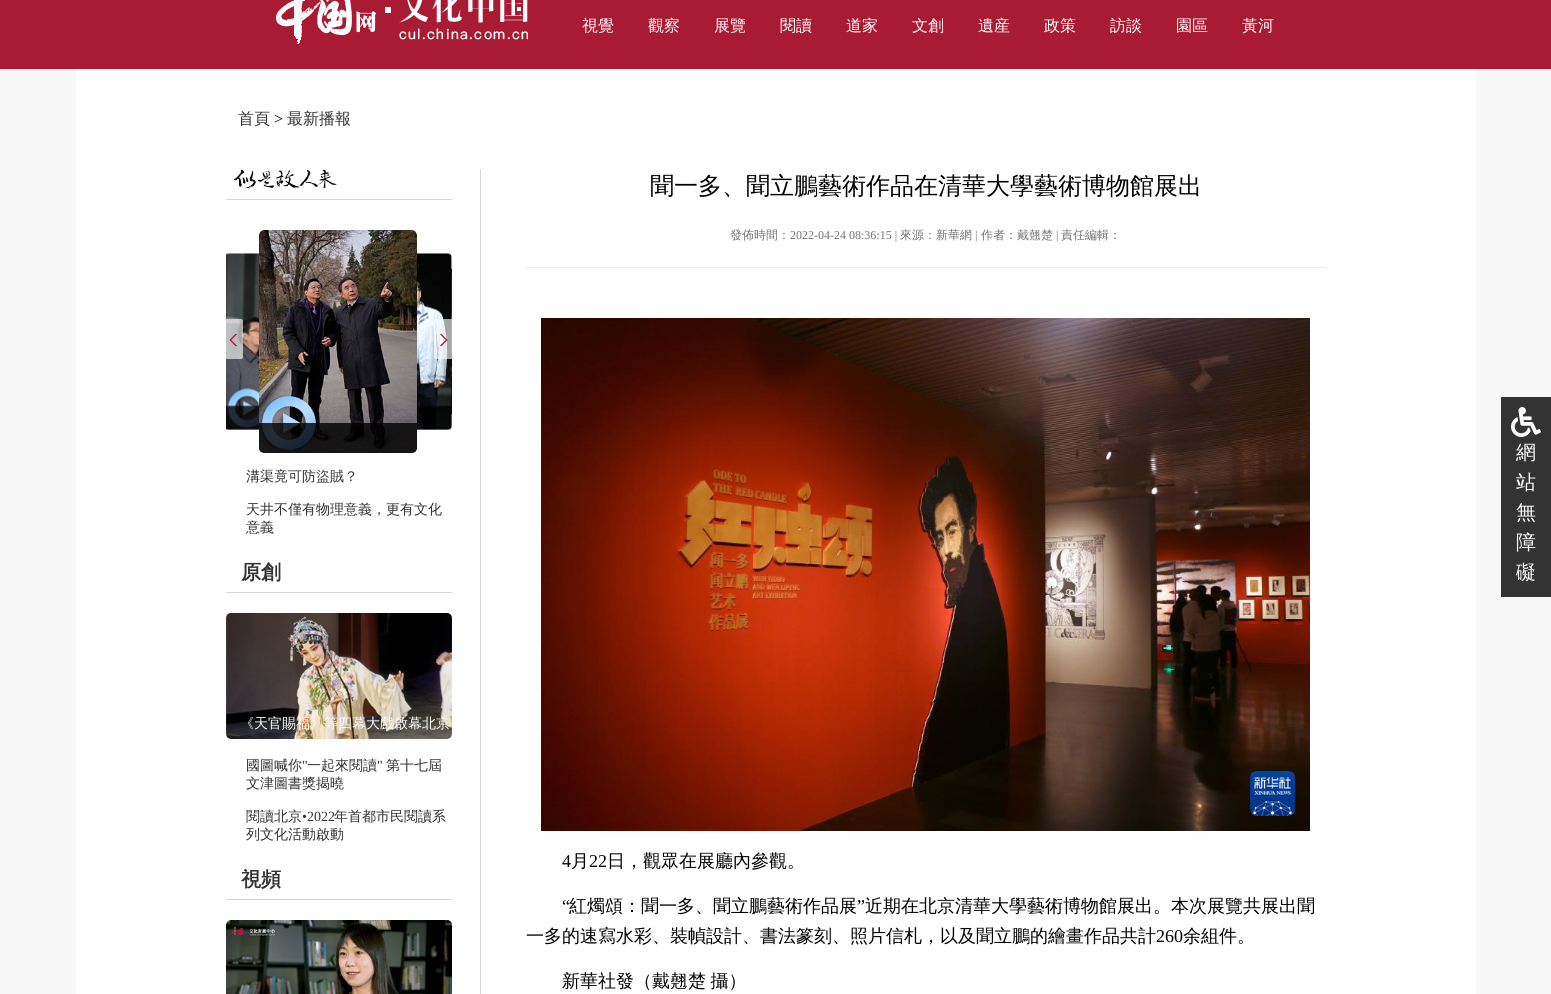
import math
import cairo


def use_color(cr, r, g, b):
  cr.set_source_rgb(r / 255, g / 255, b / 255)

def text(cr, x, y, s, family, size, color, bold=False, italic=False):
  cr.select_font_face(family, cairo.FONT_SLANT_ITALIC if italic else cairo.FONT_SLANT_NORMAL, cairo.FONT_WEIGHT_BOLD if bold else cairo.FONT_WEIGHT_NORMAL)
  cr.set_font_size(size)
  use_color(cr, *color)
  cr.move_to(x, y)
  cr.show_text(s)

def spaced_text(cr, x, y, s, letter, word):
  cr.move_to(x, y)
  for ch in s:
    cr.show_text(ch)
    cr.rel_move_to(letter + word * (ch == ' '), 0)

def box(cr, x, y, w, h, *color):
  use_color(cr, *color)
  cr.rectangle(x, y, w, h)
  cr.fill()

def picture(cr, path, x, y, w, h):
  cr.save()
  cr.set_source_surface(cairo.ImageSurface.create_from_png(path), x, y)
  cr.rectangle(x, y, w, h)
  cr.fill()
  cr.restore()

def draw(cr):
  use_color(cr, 169, 27, 51)
  cr.paint()
  picture(cr, "img_01.png", 276, 0, 100, 44)
  picture(cr, "img_02.png", 385, 0, 143, 40)
  box(cr, 0, 69, 1551, 925, 247, 247, 247)
  box(cr, 76, 69, 1400, 925, 255, 255, 255)
  box(cr, 480, 169, 1, 825, 215, 215, 215)
  box(cr, 226, 199, 226, 1, 216, 216, 216)
  picture(cr, "img_03.png", 234, 169, 104, 20)
  picture(cr, "img_04.png", 226, 253, 33, 177)
  picture(cr, "img_05.png", 226, 405, 33, 25)
  picture(cr, "img_06.png", 259, 230, 158, 223)
  picture(cr, "img_07.png", 259, 423, 158, 30)
  picture(cr, "img_10.png", 451, 268, 1, 147)
  picture(cr, "img_11.png", 451, 394, 1, 20)
  picture(cr, "img_08.png", 417, 253, 35, 177)
  picture(cr, "img_09.png", 417, 405, 35, 25)
  picture(cr, "img_12.png", 226, 319, 17, 40)
  picture(cr, "img_13.png", 434, 319, 18, 40)
  box(cr, 226, 592, 226, 1, 216, 216, 216)
  picture(cr, "img_14.png", 226, 613, 226, 126)
  box(cr, 226, 899, 226, 1, 216, 216, 216)
  picture(cr, "img_15.png", 226, 920, 226, 74)
  box(cr, 526, 267, 800, 1, 236, 236, 236)
  picture(cr, "img_16.png", 541, 318, 769, 513)
  box(cr, 1501, 397, 50, 200, 51, 51, 51)
  picture(cr, "img_17.png", 1511, 407, 30, 30)
  text(cr, 582, 31, "視覺", "WenQuanYi Zen Hei Medium", 16, (255, 255, 255))
  text(cr, 648, 31, "觀察", "WenQuanYi Zen Hei Medium", 16, (255, 255, 255))
  text(cr, 714, 31, "展覽", "WenQuanYi Zen Hei Medium", 16, (255, 255, 255))
  text(cr, 780, 31, "閱讀", "WenQuanYi Zen Hei Medium", 16, (255, 255, 255))
  text(cr, 846, 31, "道家", "WenQuanYi Zen Hei Medium", 16, (255, 255, 255))
  text(cr, 912, 31, "文創", "WenQuanYi Zen Hei Medium", 16, (255, 255, 255))
  text(cr, 978, 31, "遺産", "WenQuanYi Zen Hei Medium", 16, (255, 255, 255))
  text(cr, 1044, 31, "政策", "WenQuanYi Zen Hei Medium", 16, (255, 255, 255))
  text(cr, 1110, 31, "訪談", "WenQuanYi Zen Hei Medium", 16, (255, 255, 255))
  text(cr, 1176, 31, "園區", "WenQuanYi Zen Hei Medium", 16, (255, 255, 255))
  text(cr, 1242, 31, "黃河", "WenQuanYi Zen Hei Medium", 16, (255, 255, 255))
  text(cr, 238, 124, "首頁", "WenQuanYi Zen Hei Medium", 16, (51, 51, 51))
  text(cr, 274, 124, ">", "Liberation Serif", 16, (0, 0, 0))
  text(cr, 287, 124, "最新播報", "WenQuanYi Zen Hei Medium", 16, (51, 51, 51))
  text(cr, 246, 481, "溝渠竟可防盜賊？", "WenQuanYi Zen Hei Medium", 14, (51, 51, 51))
  text(cr, 246, 514, "天井不僅有物理意義，更有文化", "WenQuanYi Zen Hei Medium", 14, (51, 51, 51))
  text(cr, 246, 532, "意義", "WenQuanYi Zen Hei Medium", 14, (51, 51, 51))
  text(cr, 241, 579, "原創", "WenQuanYi Zen Hei", 20, (51, 51, 51), bold=True)
  text(cr, 240, 728, "《天官賜福》等四幕大戲啟幕北京", "WenQuanYi Zen Hei Medium", 14, (255, 255, 255))
  text(cr, 246, 770, "國圖喊你", "WenQuanYi Zen Hei Medium", 14, (51, 51, 51))
  text(cr, 302, 770, "\"", "Liberation Serif", 14, (51, 51, 51))
  text(cr, 307, 770, "一起來閱讀", "WenQuanYi Zen Hei Medium", 14, (51, 51, 51))
  text(cr, 377, 770, "\"", "Liberation Serif", 14, (51, 51, 51))
  text(cr, 386, 770, "第十七屆", "WenQuanYi Zen Hei Medium", 14, (51, 51, 51))
  text(cr, 246, 788, "文津圖書獎揭曉", "WenQuanYi Zen Hei Medium", 14, (51, 51, 51))
  text(cr, 246, 821, "閱讀北京", "WenQuanYi Zen Hei Medium", 14, (51, 51, 51))
  text(cr, 302, 821, "•2022", "Liberation Serif", 14, (51, 51, 51))
  text(cr, 334, 821, "年首都市民閱讀系", "WenQuanYi Zen Hei Medium", 14, (51, 51, 51))
  text(cr, 246, 839, "列文化活動啟動", "WenQuanYi Zen Hei Medium", 14, (51, 51, 51))
  text(cr, 241, 886, "視頻", "WenQuanYi Zen Hei", 20, (51, 51, 51), bold=True)
  text(cr, 650, 194, "聞一多、聞立鵬藝術作品在清華大學藝術博物館展出", "WenQuanYi Zen Hei Medium", 24, (0, 0, 0))
  text(cr, 730, 239, "發佈時間：", "WenQuanYi Zen Hei Medium", 12, (117, 117, 117))
  text(cr, 790, 239, "2022-04-24 08:36:15 |", "Liberation Serif", 12, (117, 117, 117))
  text(cr, 900, 239, "來源：新華網", "WenQuanYi Zen Hei Medium", 12, (117, 117, 117))
  text(cr, 975, 239, "|", "Liberation Serif", 12, (117, 117, 117))
  text(cr, 981, 239, "作者：戴翹楚", "WenQuanYi Zen Hei Medium", 12, (117, 117, 117))
  text(cr, 1056, 239, "|", "Liberation Serif", 12, (117, 117, 117))
  text(cr, 1061, 239, "責任編輯：", "WenQuanYi Zen Hei Medium", 12, (117, 117, 117))
  text(cr, 562, 867, "4", "Liberation Serif", 18, (0, 0, 0))
  text(cr, 571, 867, "月", "WenQuanYi Zen Hei Medium", 18, (0, 0, 0))
  text(cr, 589, 867, "22", "Liberation Serif", 18, (0, 0, 0))
  text(cr, 607, 867, "日，觀眾在展廳內參觀。", "WenQuanYi Zen Hei Medium", 18, (0, 0, 0))
  text(cr, 562, 912, "“", "Liberation Serif", 18, (0, 0, 0))
  text(cr, 569, 912, "紅燭頌：聞一多、聞立鵬藝術作品展", "WenQuanYi Zen Hei Medium", 18, (0, 0, 0))
  text(cr, 857, 912, "”", "Liberation Serif", 18, (0, 0, 0))
  text(cr, 865, 912, "近期在北京清華大學藝術博物館展出。本次展覽共展出聞", "WenQuanYi Zen Hei Medium", 18, (0, 0, 0))
  text(cr, 526, 942, "一多的速寫水彩、裝幀設計、書法篆刻、照片信札，以及聞立鵬的繪畫作品共計", "WenQuanYi Zen Hei Medium", 18, (0, 0, 0))
  text(cr, 1156, 942, "260", "Liberation Serif", 18, (0, 0, 0))
  text(cr, 1183, 942, "余組件。", "WenQuanYi Zen Hei Medium", 18, (0, 0, 0))
  spaced_text(cr, 562, 987, "新華社發（戴翹楚 攝）", 0, -1)
  text(cr, 1516, 459, "網", "WenQuanYi Zen Hei Medium", 20, (255, 255, 255))
  text(cr, 1516, 489, "站", "WenQuanYi Zen Hei Medium", 20, (255, 255, 255))
  text(cr, 1516, 519, "無", "WenQuanYi Zen Hei Medium", 20, (255, 255, 255))
  text(cr, 1516, 549, "障", "WenQuanYi Zen Hei Medium", 20, (255, 255, 255))
  text(cr, 1516, 579, "礙", "WenQuanYi Zen Hei Medium", 20, (255, 255, 255))


surface = cairo.ImageSurface(cairo.FORMAT_RGB24, 1551, 994)
cr = cairo.Context(surface)
options = cairo.FontOptions()
options.set_hint_metrics(cairo.HINT_METRICS_OFF)
options.set_hint_style(cairo.HINT_STYLE_NONE)
cr.set_font_options(options)
cr.set_miter_limit(4)
draw(cr)
surface.write_to_png("out.png")
